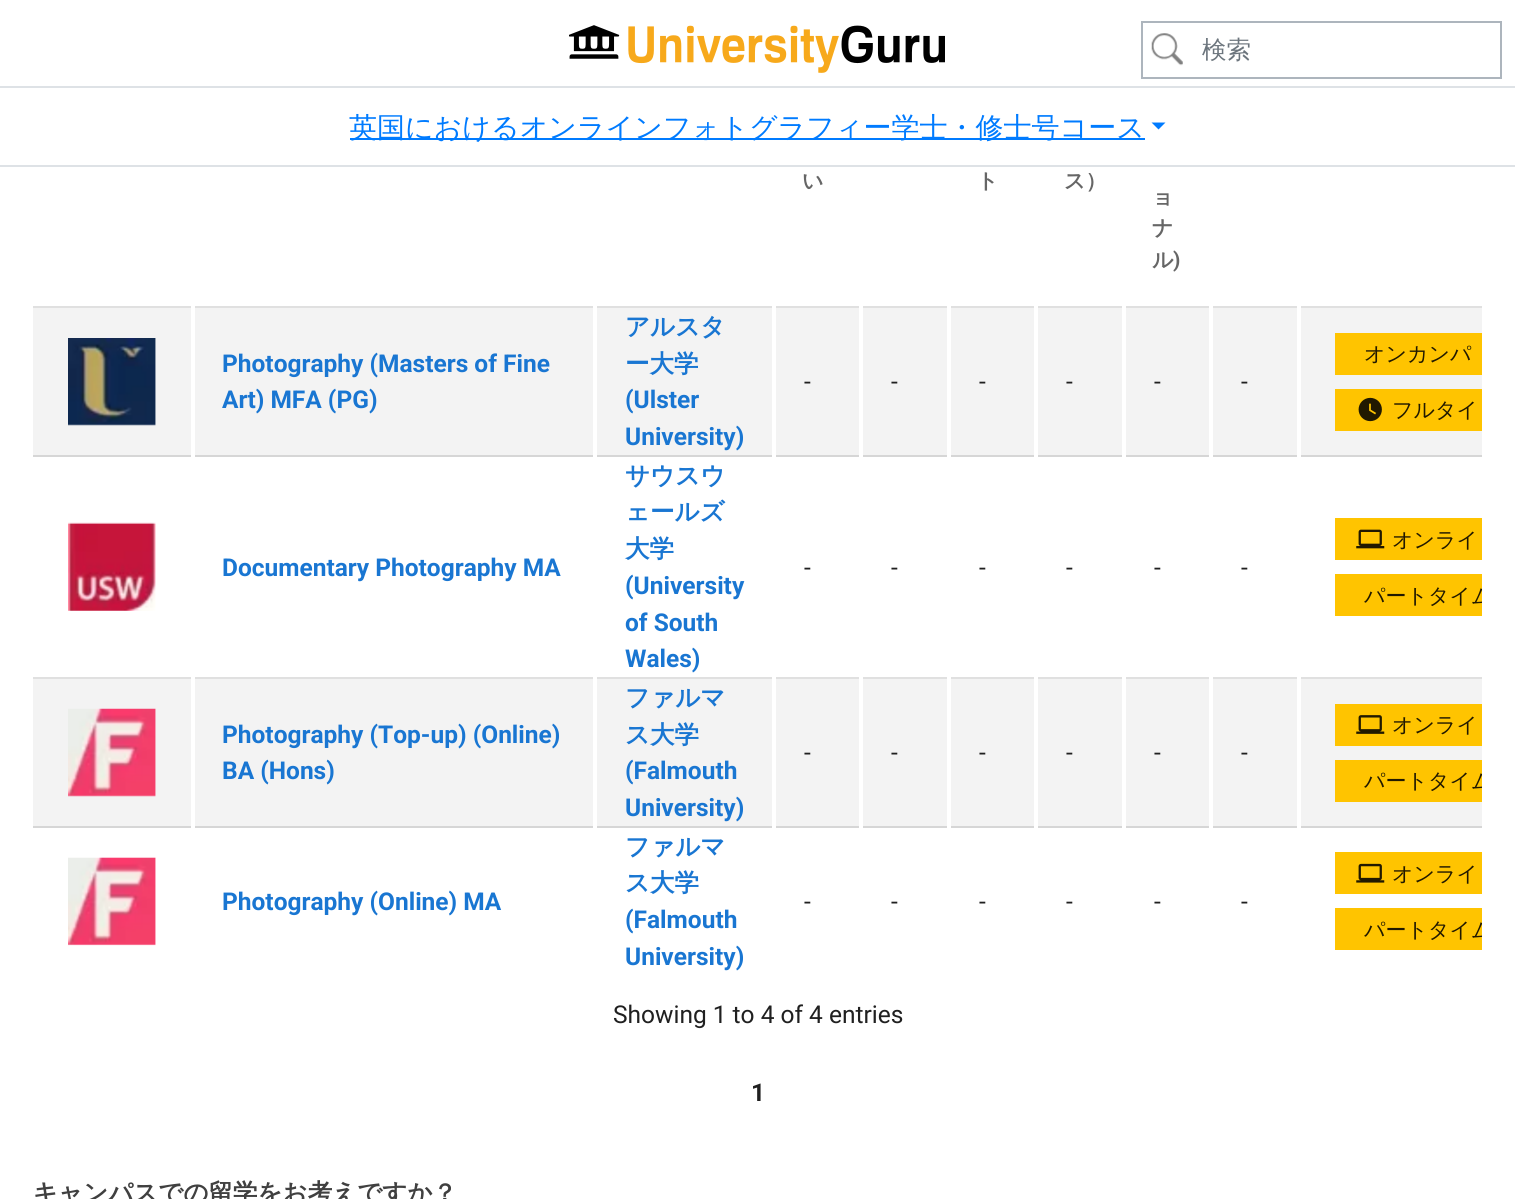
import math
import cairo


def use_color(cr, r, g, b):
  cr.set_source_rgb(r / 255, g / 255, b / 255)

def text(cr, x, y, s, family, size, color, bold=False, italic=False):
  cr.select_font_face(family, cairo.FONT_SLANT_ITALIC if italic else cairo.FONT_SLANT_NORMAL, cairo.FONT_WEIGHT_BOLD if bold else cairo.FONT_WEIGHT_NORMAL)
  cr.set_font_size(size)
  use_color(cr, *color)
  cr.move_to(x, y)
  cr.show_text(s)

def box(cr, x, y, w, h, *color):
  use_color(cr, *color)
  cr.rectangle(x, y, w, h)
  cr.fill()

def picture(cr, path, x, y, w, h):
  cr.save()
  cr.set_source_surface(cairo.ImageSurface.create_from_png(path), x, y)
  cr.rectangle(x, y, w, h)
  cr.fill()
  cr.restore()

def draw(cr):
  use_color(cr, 255, 255, 255)
  cr.paint()
  box(cr, 33, 306, 1449, 2, 224, 224, 224)
  box(cr, 33, 677, 1449, 2, 224, 224, 224)
  box(cr, 0, 86, 1515, 2, 222, 226, 230)
  picture(cr, "img_01.png", 569, 25, 376, 48)
  cr.rectangle(1142, 22, 359, 56)
  use_color(cr, 173, 181, 189)
  cr.stroke()
  picture(cr, "img_02.png", 1151, 33, 32, 33)
  box(cr, 0, 165, 1515, 2, 222, 226, 230)
  box(cr, 350, 138, 795, 2, 0, 123, 255)
  cr.new_path()
  cr.move_to(1151.5, 122.5)
  cr.line_to(1165.5, 122.5)
  cr.line_to(1158.5, 129.5)
  cr.close_path()
  cr.fill()
  box(cr, 33, 308, 1449, 147, 243, 243, 243)
  box(cr, 33, 455, 1449, 2, 214, 214, 214)
  picture(cr, "img_03.png", 68, 338, 88, 88)
  box(cr, 1335, 333, 147, 42, 255, 196, 0)
  box(cr, 1335, 389, 147, 42, 255, 196, 0)
  picture(cr, "img_04.png", 1358, 397, 24, 25)
  box(cr, 191, 306, 4, 153, 255, 255, 255)
  picture(cr, "img_05.png", 68, 522, 88, 89)
  box(cr, 593, 306, 4, 153, 255, 255, 255)
  box(cr, 772, 306, 4, 153, 255, 255, 255)
  box(cr, 859, 306, 4, 153, 255, 255, 255)
  box(cr, 947, 306, 4, 153, 255, 255, 255)
  box(cr, 1034, 306, 4, 153, 255, 255, 255)
  box(cr, 1122, 306, 4, 153, 255, 255, 255)
  box(cr, 1209, 306, 4, 153, 255, 255, 255)
  box(cr, 1297, 306, 4, 153, 255, 255, 255)
  box(cr, 1335, 518, 147, 42, 255, 196, 0)
  picture(cr, "img_06.png", 1356, 529, 29, 20)
  box(cr, 1335, 574, 147, 42, 255, 196, 0)
  box(cr, 33, 679, 1449, 147, 243, 243, 243)
  box(cr, 33, 826, 1449, 2, 214, 214, 214)
  picture(cr, "img_07.png", 68, 708, 88, 89)
  box(cr, 1335, 704, 147, 42, 255, 196, 0)
  picture(cr, "img_08.png", 1356, 715, 29, 19)
  box(cr, 1335, 760, 147, 42, 255, 196, 0)
  box(cr, 191, 677, 4, 153, 255, 255, 255)
  picture(cr, "img_09.png", 68, 857, 88, 89)
  box(cr, 593, 677, 4, 153, 255, 255, 255)
  box(cr, 772, 677, 4, 153, 255, 255, 255)
  box(cr, 859, 677, 4, 153, 255, 255, 255)
  box(cr, 947, 677, 4, 153, 255, 255, 255)
  box(cr, 1034, 677, 4, 153, 255, 255, 255)
  box(cr, 1122, 677, 4, 153, 255, 255, 255)
  box(cr, 1209, 677, 4, 153, 255, 255, 255)
  box(cr, 1297, 677, 4, 153, 255, 255, 255)
  box(cr, 1335, 852, 147, 42, 255, 196, 0)
  picture(cr, "img_10.png", 1356, 863, 29, 20)
  box(cr, 1335, 908, 147, 42, 255, 196, 0)
  text(cr, 1202, 58, "検索", "WenQuanYi Zen Hei Medium", 24.5, (108, 117, 125))
  text(cr, 349, 137, "英国におけるオンラインフォトグラフィー学士・修士号コース", "WenQuanYi Zen Hei Medium", 28, (0, 123, 255))
  text(cr, 802, 188, "い", "WenQuanYi Zen Hei", 21, (102, 102, 102), bold=True)
  text(cr, 977, 188, "ト", "WenQuanYi Zen Hei", 21, (102, 102, 102), bold=True)
  text(cr, 1064, 188, "ス）", "WenQuanYi Zen Hei", 21, (102, 102, 102), bold=True)
  text(cr, 1152, 204, "ョ", "WenQuanYi Zen Hei", 21, (102, 102, 102), bold=True)
  text(cr, 1152, 235, "ナ", "WenQuanYi Zen Hei", 21, (102, 102, 102), bold=True)
  text(cr, 1152, 267, "ル", "WenQuanYi Zen Hei", 21, (102, 102, 102), bold=True)
  text(cr, 1173, 267, ")", "Roboto", 21, (102, 102, 102), bold=True)
  text(cr, 222, 372, "Photography (Masters of Fine", "Roboto", 24.5, (25, 118, 210), bold=True)
  text(cr, 222, 408, "Art) MFA (PG)", "Roboto", 24.5, (25, 118, 210), bold=True)
  text(cr, 625, 335, "アルスタ", "WenQuanYi Zen Hei", 24.5, (25, 118, 210), bold=True)
  text(cr, 625, 372, "ー大学", "WenQuanYi Zen Hei", 24.5, (25, 118, 210), bold=True)
  text(cr, 625, 408, "(Ulster", "Roboto", 24.5, (25, 118, 210), bold=True)
  text(cr, 625, 445, "University)", "Roboto", 24.5, (25, 118, 210), bold=True)
  text(cr, 804, 390, "-", "Roboto", 24.5, (32, 32, 32))
  text(cr, 891, 390, "-", "Roboto", 24.5, (32, 32, 32))
  text(cr, 979, 390, "-", "Roboto", 24.5, (32, 32, 32))
  text(cr, 1066, 390, "-", "Roboto", 24.5, (32, 32, 32))
  text(cr, 1154, 390, "-", "Roboto", 24.5, (32, 32, 32))
  text(cr, 1241, 390, "-", "Roboto", 24.5, (32, 32, 32))
  text(cr, 1364, 361, "オンカンパ", "WenQuanYi Zen Hei Medium", 21, (33, 25, 0))
  text(cr, 1392, 417, "フルタイ", "WenQuanYi Zen Hei Medium", 21, (33, 25, 0))
  text(cr, 222, 576, "Documentary Photography MA", "Roboto", 24.5, (25, 118, 210), bold=True)
  text(cr, 625, 484, "サウスウ", "WenQuanYi Zen Hei", 24.5, (25, 118, 210), bold=True)
  text(cr, 625, 520, "ェールズ", "WenQuanYi Zen Hei", 24.5, (25, 118, 210), bold=True)
  text(cr, 625, 557, "大学", "WenQuanYi Zen Hei", 24.5, (25, 118, 210), bold=True)
  text(cr, 625, 594, "(University", "Roboto", 24.5, (25, 118, 210), bold=True)
  text(cr, 625, 631, "of South", "Roboto", 24.5, (25, 118, 210), bold=True)
  text(cr, 625, 667, "Wales)", "Roboto", 24.5, (25, 118, 210), bold=True)
  text(cr, 804, 576, "-", "Roboto", 24.5, (32, 32, 32))
  text(cr, 891, 576, "-", "Roboto", 24.5, (32, 32, 32))
  text(cr, 979, 576, "-", "Roboto", 24.5, (32, 32, 32))
  text(cr, 1066, 576, "-", "Roboto", 24.5, (32, 32, 32))
  text(cr, 1154, 576, "-", "Roboto", 24.5, (32, 32, 32))
  text(cr, 1241, 576, "-", "Roboto", 24.5, (32, 32, 32))
  text(cr, 1392, 547, "オンライ", "WenQuanYi Zen Hei Medium", 21, (33, 25, 0))
  cr.save()
  cr.rectangle(1335, 574, 147, 42)
  cr.clip()
  text(cr, 1364, 603, "パートタイム", "WenQuanYi Zen Hei Medium", 21, (33, 25, 0))
  cr.restore()
  text(cr, 222, 743, "Photography (Top-up) (Online)", "Roboto", 24.5, (25, 118, 210), bold=True)
  text(cr, 222, 779, "BA (Hons)", "Roboto", 24.5, (25, 118, 210), bold=True)
  text(cr, 625, 706, "ファルマ", "WenQuanYi Zen Hei", 24.5, (25, 118, 210), bold=True)
  text(cr, 625, 743, "ス大学", "WenQuanYi Zen Hei", 24.5, (25, 118, 210), bold=True)
  text(cr, 625, 779, "(Falmouth", "Roboto", 24.5, (25, 118, 210), bold=True)
  text(cr, 625, 816, "University)", "Roboto", 24.5, (25, 118, 210), bold=True)
  text(cr, 804, 761, "-", "Roboto", 24.5, (32, 32, 32))
  text(cr, 891, 761, "-", "Roboto", 24.5, (32, 32, 32))
  text(cr, 979, 761, "-", "Roboto", 24.5, (32, 32, 32))
  text(cr, 1066, 761, "-", "Roboto", 24.5, (32, 32, 32))
  text(cr, 1154, 761, "-", "Roboto", 24.5, (32, 32, 32))
  text(cr, 1241, 761, "-", "Roboto", 24.5, (32, 32, 32))
  text(cr, 1392, 732, "オンライ", "WenQuanYi Zen Hei Medium", 21, (33, 25, 0))
  cr.save()
  cr.rectangle(1335, 760, 147, 42)
  cr.clip()
  text(cr, 1364, 788, "パートタイム", "WenQuanYi Zen Hei Medium", 21, (33, 25, 0))
  cr.restore()
  text(cr, 222, 910, "Photography (Online) MA", "Roboto", 24.5, (25, 118, 210), bold=True)
  text(cr, 625, 855, "ファルマ", "WenQuanYi Zen Hei", 24.5, (25, 118, 210), bold=True)
  text(cr, 625, 891, "ス大学", "WenQuanYi Zen Hei", 24.5, (25, 118, 210), bold=True)
  text(cr, 625, 928, "(Falmouth", "Roboto", 24.5, (25, 118, 210), bold=True)
  text(cr, 625, 965, "University)", "Roboto", 24.5, (25, 118, 210), bold=True)
  text(cr, 804, 910, "-", "Roboto", 24.5, (32, 32, 32))
  text(cr, 891, 910, "-", "Roboto", 24.5, (32, 32, 32))
  text(cr, 979, 910, "-", "Roboto", 24.5, (32, 32, 32))
  text(cr, 1066, 910, "-", "Roboto", 24.5, (32, 32, 32))
  text(cr, 1154, 910, "-", "Roboto", 24.5, (32, 32, 32))
  text(cr, 1241, 910, "-", "Roboto", 24.5, (32, 32, 32))
  text(cr, 1392, 881, "オンライ", "WenQuanYi Zen Hei Medium", 21, (33, 25, 0))
  cr.save()
  cr.rectangle(1335, 908, 147, 42)
  cr.clip()
  text(cr, 1364, 937, "パートタイム", "WenQuanYi Zen Hei Medium", 21, (33, 25, 0))
  cr.restore()
  text(cr, 613, 1023, "Showing 1 to 4 of 4 entries", "Roboto", 24.5, (32, 32, 32))
  text(cr, 751, 1101, "1", "Roboto", 24.5, (32, 32, 32), bold=True)
  text(cr, 33, 1201, "キャンパスでの留学をお考えですか？", "WenQuanYi Zen Hei", 24.5, (64, 64, 64), bold=True)


surface = cairo.ImageSurface(cairo.FORMAT_RGB24, 1515, 1199)
cr = cairo.Context(surface)
options = cairo.FontOptions()
options.set_hint_metrics(cairo.HINT_METRICS_OFF)
options.set_hint_style(cairo.HINT_STYLE_NONE)
cr.set_font_options(options)
cr.set_miter_limit(4)
draw(cr)
surface.write_to_png("out.png")
